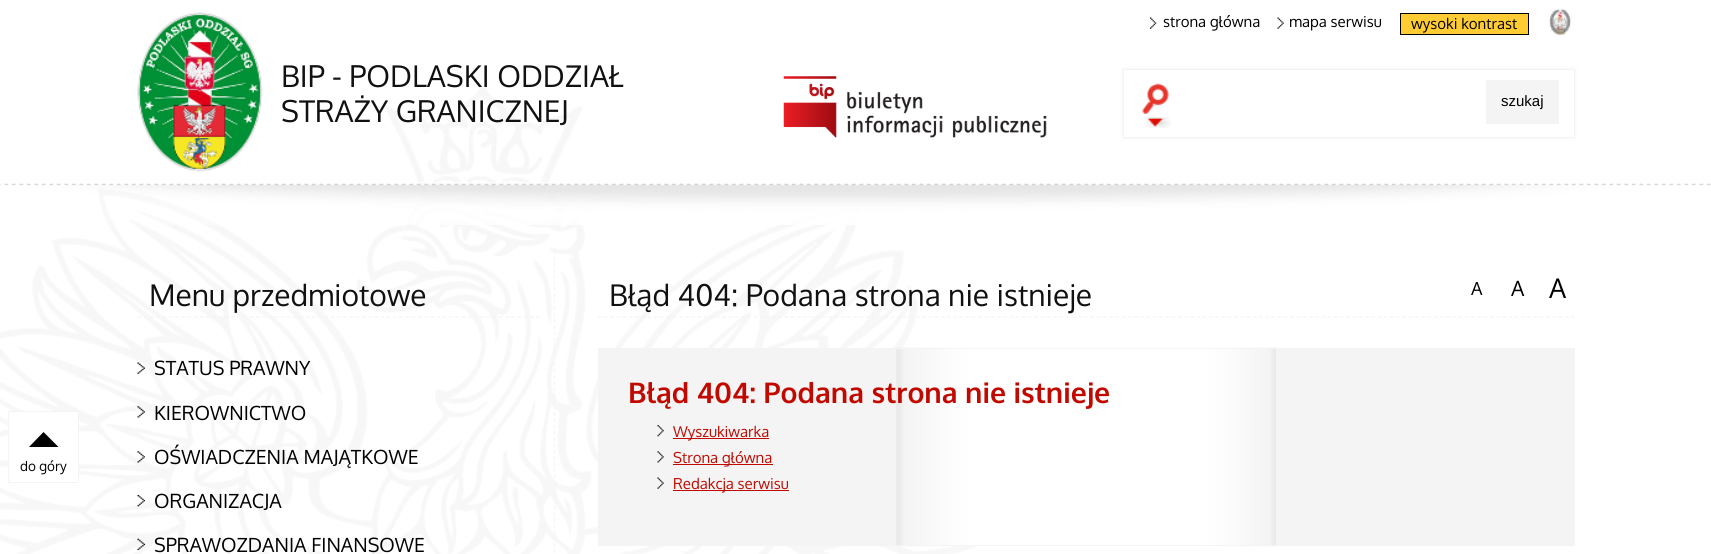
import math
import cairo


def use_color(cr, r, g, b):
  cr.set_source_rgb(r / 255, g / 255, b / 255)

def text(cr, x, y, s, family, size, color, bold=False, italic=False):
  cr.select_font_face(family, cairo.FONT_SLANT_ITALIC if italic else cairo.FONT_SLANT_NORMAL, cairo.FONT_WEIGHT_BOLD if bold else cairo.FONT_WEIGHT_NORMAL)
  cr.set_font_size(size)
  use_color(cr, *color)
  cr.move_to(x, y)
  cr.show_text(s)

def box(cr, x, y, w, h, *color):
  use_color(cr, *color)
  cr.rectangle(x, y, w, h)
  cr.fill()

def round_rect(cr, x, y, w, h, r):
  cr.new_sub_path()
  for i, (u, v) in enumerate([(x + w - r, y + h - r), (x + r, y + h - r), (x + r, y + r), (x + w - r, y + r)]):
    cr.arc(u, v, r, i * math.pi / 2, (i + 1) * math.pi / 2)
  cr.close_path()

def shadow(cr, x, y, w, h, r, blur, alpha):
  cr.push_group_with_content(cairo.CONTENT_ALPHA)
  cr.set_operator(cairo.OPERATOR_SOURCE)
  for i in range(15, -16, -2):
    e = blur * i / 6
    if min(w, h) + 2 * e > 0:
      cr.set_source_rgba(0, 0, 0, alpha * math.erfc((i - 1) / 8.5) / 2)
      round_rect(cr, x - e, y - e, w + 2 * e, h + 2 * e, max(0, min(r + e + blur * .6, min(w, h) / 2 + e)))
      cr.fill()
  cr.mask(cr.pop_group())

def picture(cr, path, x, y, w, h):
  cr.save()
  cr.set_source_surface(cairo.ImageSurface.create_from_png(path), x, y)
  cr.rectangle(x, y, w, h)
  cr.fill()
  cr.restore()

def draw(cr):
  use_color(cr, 255, 255, 255)
  cr.paint()
  picture(cr, "img_01.png", 0, 85, 976, 469)
  box(cr, 9, 412, 69, 63, 255, 255, 255)
  cr.rectangle(8.5, 411.5, 70, 71)
  use_color(cr, 244, 244, 244)
  cr.set_line_width(1)
  cr.stroke()
  use_color(cr, 0, 0, 0)
  cr.new_path()
  cr.move_to(29, 447)
  cr.line_to(58.5, 447)
  cr.line_to(43.5, 432)
  cr.close_path()
  cr.fill()
  picture(cr, "img_02.png", 1150, 17, 7, 12)
  picture(cr, "img_03.png", 1277, 17, 7, 12)
  use_color(cr, 255, 204, 51)
  cr.rectangle(1400.5, 13.5, 128, 21)
  cr.fill_preserve()
  use_color(cr, 0, 0, 0)
  cr.stroke()
  picture(cr, "img_04.png", 1549, 8, 23, 28)
  picture(cr, "img_05.png", 137, 12, 126, 160)
  picture(cr, "img_06.png", 783, 76, 264, 62)
  use_color(cr, 244, 244, 244)
  shadow(cr, 1123, 69, 452, 69, 0, 2, 1)
  use_color(cr, 255, 255, 255)
  cr.rectangle(1123.5, 69.5, 451, 68)
  cr.fill_preserve()
  use_color(cr, 244, 244, 244)
  cr.stroke()
  picture(cr, "img_07.png", 1142, 83, 29, 45)
  box(cr, 1486, 80, 73, 44, 244, 244, 244)
  picture(cr, "img_08.png", 0, 182, 1711, 43)
  cr.new_path()
  cr.move_to(554.5, 250)
  cr.line_to(554.5, 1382.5)
  cr.set_line_width(1.2)
  cr.set_dash([3.75, 2.49])
  cr.stroke()
  cr.new_path()
  cr.move_to(137.5, 317)
  cr.line_to(540, 317)
  cr.set_dash([3.75, 2.48])
  cr.stroke()
  picture(cr, "img_09.png", 137, 362, 8, 12)
  picture(cr, "img_10.png", 137, 406, 8, 12)
  picture(cr, "img_11.png", 137, 451, 8, 12)
  picture(cr, "img_12.png", 137, 495, 8, 12)
  picture(cr, "img_13.png", 137, 538, 8, 12)
  cr.new_path()
  cr.move_to(597.5, 317)
  cr.line_to(1575, 317)
  cr.set_dash([3.75, 2.49])
  cr.stroke()
  box(cr, 599, 349, 975, 196, 244, 244, 244)
  picture(cr, "img_14.png", 896, 347, 380, 200)
  cr.rectangle(598.5, 348.5, 976, 197)
  cr.set_line_width(1)
  cr.set_dash([])
  cr.stroke()
  picture(cr, "img_15.png", 657, 425, 7, 12)
  box(cr, 673, 438, 96, 1, 193, 9, 0)
  picture(cr, "img_16.png", 657, 451, 7, 12)
  box(cr, 673, 464, 100, 1, 193, 9, 0)
  picture(cr, "img_17.png", 657, 477, 7, 12)
  box(cr, 673, 490, 116, 1, 193, 9, 0)
  text(cr, 20, 471, "do góry", "Oxygen", 13.5, (0, 0, 0))
  text(cr, 1163, 27, "strona główna", "Oxygen", 15, (0, 0, 0))
  text(cr, 1289, 27, "mapa serwisu", "Oxygen", 15, (0, 0, 0))
  text(cr, 1411, 29, "wysoki kontrast", "Oxygen", 15, (0, 0, 0))
  text(cr, 281, 87, "BIP - PODLASKI ODDZIAŁ", "Oxygen", 29.9, (17, 17, 17))
  text(cr, 281, 122, "STRAŻY GRANICZNEJ", "Oxygen", 29.9, (17, 17, 17))
  text(cr, 1501, 106, "szukaj", "Liberation Sans", 15, (0, 0, 0))
  text(cr, 149, 306, "Menu przedmiotowe", "Oxygen", 29.9, (17, 17, 17))
  text(cr, 154, 375, "STATUS PRAWNY", "Oxygen", 19.5, (0, 0, 0))
  text(cr, 154, 420, "KIEROWNICTWO", "Oxygen", 19.5, (0, 0, 0))
  text(cr, 154, 464, "OŚWIADCZENIA MAJĄTKOWE", "Oxygen", 19.5, (0, 0, 0))
  text(cr, 154, 508, "ORGANIZACJA", "Oxygen", 19.5, (0, 0, 0))
  text(cr, 154, 552, "SPRAWOZDANIA FINANSOWE", "Oxygen", 19.5, (0, 0, 0))
  text(cr, 609, 306, "Błąd 404: Podana strona nie istnieje", "Oxygen", 29.9, (17, 17, 17))
  text(cr, 1471, 295, "A", "Oxygen", 18, (0, 0, 0))
  text(cr, 1511, 296, "A", "Oxygen", 21, (0, 0, 0))
  text(cr, 1549, 298, "A", "Oxygen", 27, (0, 0, 0))
  text(cr, 628, 403, "Błąd 404: Podana strona nie istnieje", "Oxygen", 28.4, (193, 9, 0), bold=True)
  text(cr, 673, 437, "Wyszukiwarka", "Oxygen", 15, (193, 9, 0))
  text(cr, 673, 463, "Strona główna", "Oxygen", 15, (193, 9, 0))
  text(cr, 673, 489, "Redakcja serwisu", "Oxygen", 15, (193, 9, 0))


surface = cairo.ImageSurface(cairo.FORMAT_RGB24, 1711, 554)
cr = cairo.Context(surface)
options = cairo.FontOptions()
options.set_hint_metrics(cairo.HINT_METRICS_OFF)
options.set_hint_style(cairo.HINT_STYLE_NONE)
cr.set_font_options(options)
cr.set_miter_limit(4)
draw(cr)
surface.write_to_png("out.png")
